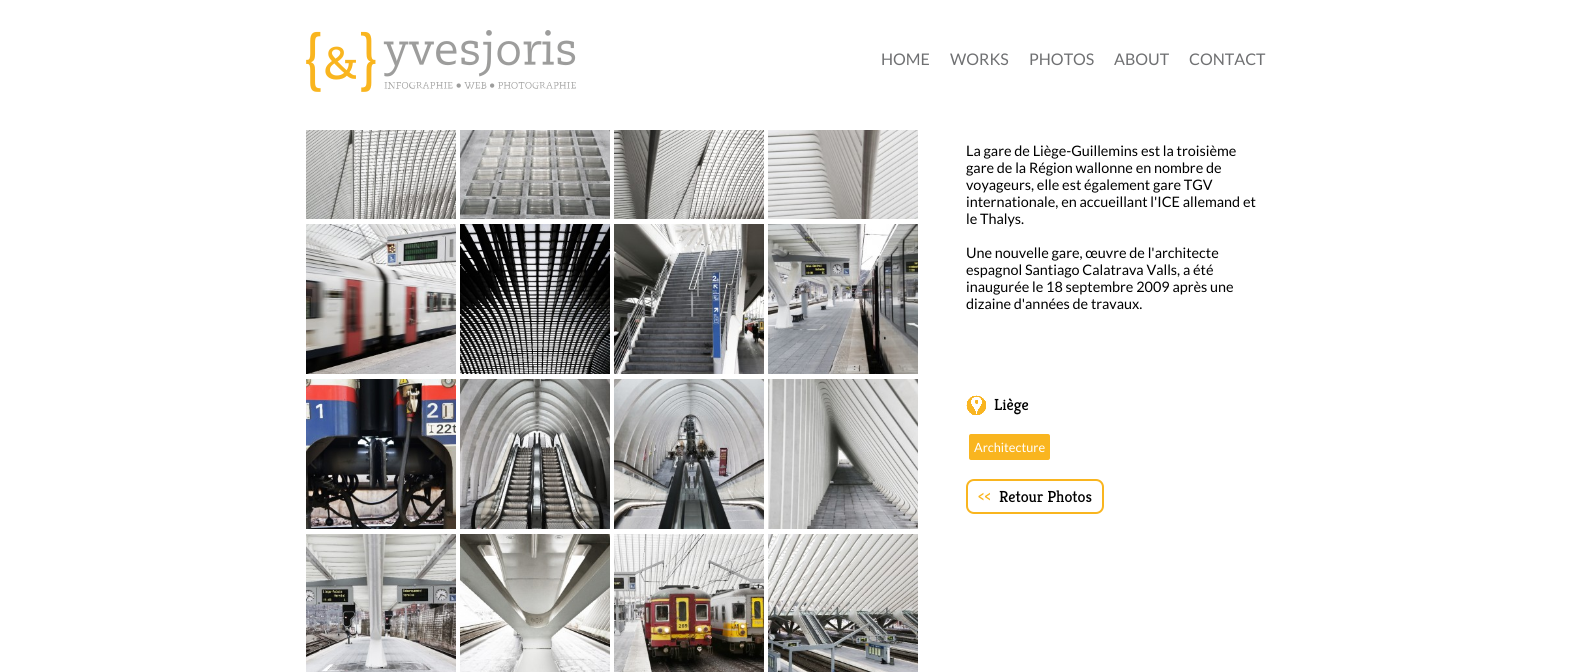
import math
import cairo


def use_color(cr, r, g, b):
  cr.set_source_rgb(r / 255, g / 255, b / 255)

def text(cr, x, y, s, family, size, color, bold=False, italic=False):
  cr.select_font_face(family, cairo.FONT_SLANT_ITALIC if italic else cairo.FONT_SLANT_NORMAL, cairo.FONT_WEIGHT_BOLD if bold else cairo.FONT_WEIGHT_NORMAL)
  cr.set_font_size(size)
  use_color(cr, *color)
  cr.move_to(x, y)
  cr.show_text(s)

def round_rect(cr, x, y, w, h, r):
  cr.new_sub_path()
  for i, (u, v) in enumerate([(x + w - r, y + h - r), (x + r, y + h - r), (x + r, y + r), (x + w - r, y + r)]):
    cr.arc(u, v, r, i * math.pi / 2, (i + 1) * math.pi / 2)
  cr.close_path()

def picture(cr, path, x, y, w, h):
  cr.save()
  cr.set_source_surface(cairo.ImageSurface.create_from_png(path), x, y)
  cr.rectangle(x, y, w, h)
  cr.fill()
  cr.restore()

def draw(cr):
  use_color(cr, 255, 255, 255)
  cr.paint()
  picture(cr, "img_01.png", 306, 30, 270, 62)
  picture(cr, "img_02.png", 306, 130, 150, 89)
  picture(cr, "img_03.png", 460, 130, 150, 89)
  picture(cr, "img_04.png", 614, 130, 150, 89)
  picture(cr, "img_05.png", 768, 130, 150, 89)
  picture(cr, "img_06.png", 306, 224, 150, 150)
  picture(cr, "img_07.png", 460, 224, 150, 150)
  picture(cr, "img_08.png", 614, 224, 150, 150)
  picture(cr, "img_09.png", 768, 224, 150, 150)
  picture(cr, "img_10.png", 306, 379, 150, 150)
  picture(cr, "img_11.png", 460, 379, 150, 150)
  picture(cr, "img_12.png", 614, 379, 150, 150)
  picture(cr, "img_13.png", 768, 379, 150, 150)
  picture(cr, "img_14.png", 306, 534, 150, 138)
  picture(cr, "img_15.png", 460, 534, 150, 138)
  picture(cr, "img_16.png", 614, 534, 150, 138)
  picture(cr, "img_17.png", 768, 534, 150, 138)
  picture(cr, "img_18.png", 966, 395, 20, 20)
  use_color(cr, 249, 181, 31)
  round_rect(cr, 969, 434, 81, 26, 2)
  cr.fill()
  round_rect(cr, 967, 480, 136, 33, 7)
  cr.stroke()
  text(cr, 881, 65, "HOME", "Lato", 16, (111, 112, 114))
  text(cr, 950, 65, "WORKS", "Lato", 16, (111, 112, 114))
  text(cr, 1029, 65, "PHOTOS", "Lato", 16, (111, 112, 114))
  text(cr, 1114, 65, "ABOUT", "Lato", 16, (111, 112, 114))
  text(cr, 1189, 65, "CONTACT", "Lato", 16, (111, 112, 114))
  text(cr, 966, 156, "La gare de Liège-Guillemins est la troisième", "Lato", 14.4, (0, 0, 0))
  text(cr, 966, 173, "gare de la Région wallonne en nombre de", "Lato", 14.4, (0, 0, 0))
  text(cr, 966, 190, "voyageurs, elle est également gare TGV", "Lato", 14.4, (0, 0, 0))
  text(cr, 966, 207, "internationale, en accueillant l'ICE allemand et", "Lato", 14.4, (0, 0, 0))
  text(cr, 966, 224, "le Thalys.", "Lato", 14.4, (0, 0, 0))
  text(cr, 966, 258, "Une nouvelle gare, œuvre de l'architecte", "Lato", 14.4, (0, 0, 0))
  text(cr, 966, 275, "espagnol Santiago Calatrava Valls, a été", "Lato", 14.4, (0, 0, 0))
  text(cr, 966, 292, "inaugurée le 18 septembre 2009 après une", "Lato", 14.4, (0, 0, 0))
  text(cr, 966, 309, "dizaine d'années de travaux.", "Lato", 14.4, (0, 0, 0))
  text(cr, 994, 410, "Liège", "Kreon", 16, (0, 0, 0))
  text(cr, 974, 452, "Architecture", "Lato", 12.75, (255, 255, 255))
  text(cr, 978, 502, "<<", "Kreon", 16, (249, 181, 31))
  text(cr, 999, 502, "Retour Photos", "Kreon", 16, (0, 0, 0))


surface = cairo.ImageSurface(cairo.FORMAT_RGB24, 1572, 672)
cr = cairo.Context(surface)
options = cairo.FontOptions()
options.set_hint_metrics(cairo.HINT_METRICS_OFF)
options.set_hint_style(cairo.HINT_STYLE_NONE)
cr.set_font_options(options)
cr.set_miter_limit(4)
draw(cr)
surface.write_to_png("out.png")
